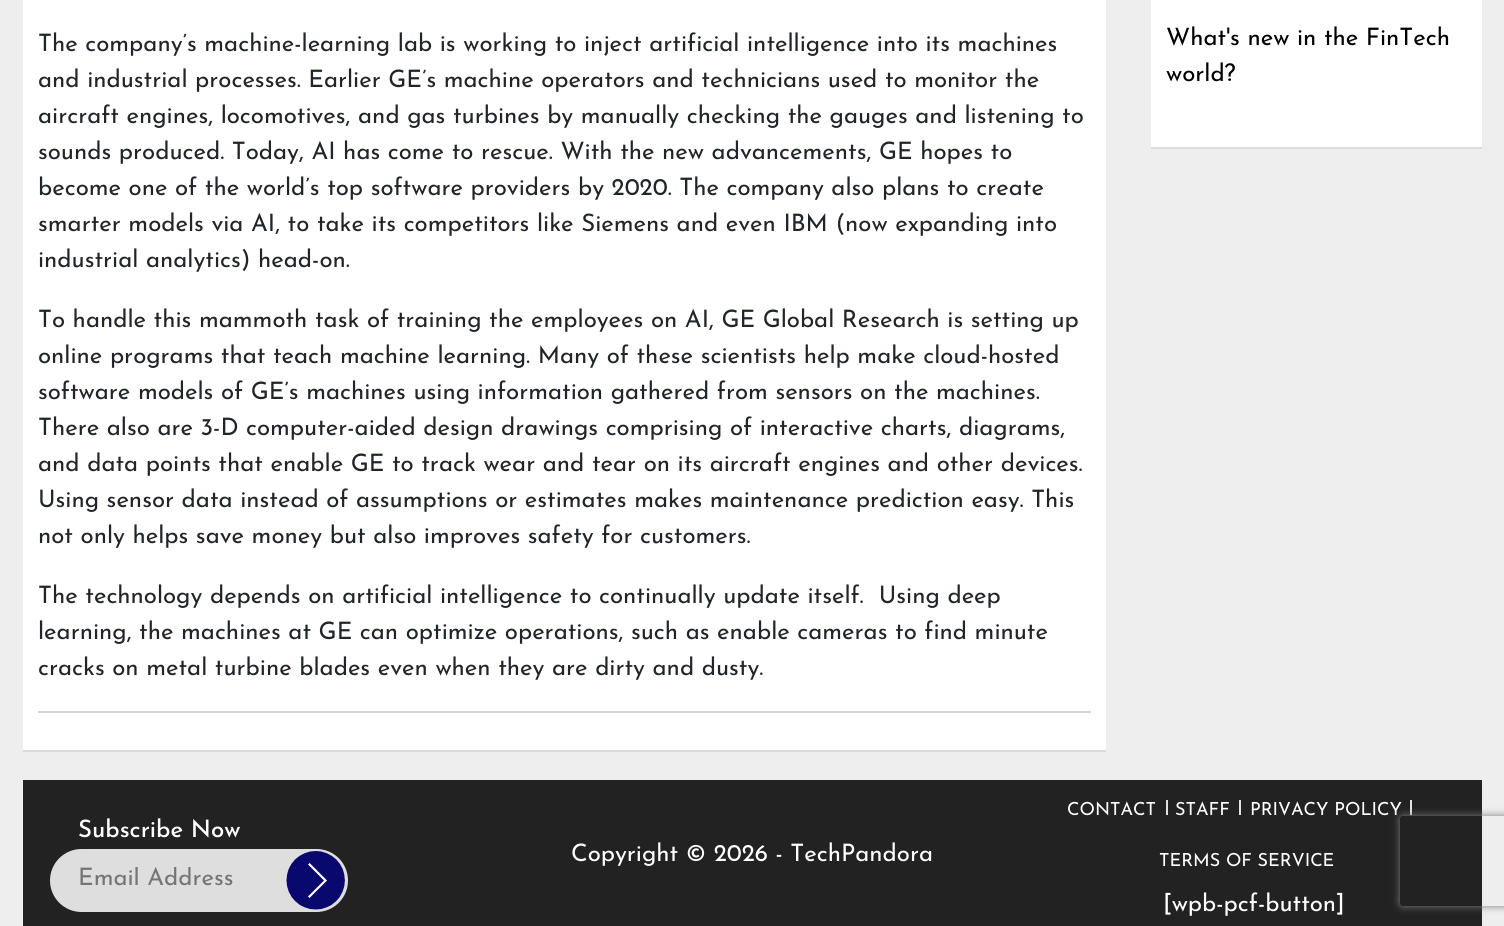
import math
import cairo


def use_color(cr, r, g, b):
  cr.set_source_rgb(r / 255, g / 255, b / 255)

def text(cr, x, y, s, family, size, color, bold=False, italic=False):
  cr.select_font_face(family, cairo.FONT_SLANT_ITALIC if italic else cairo.FONT_SLANT_NORMAL, cairo.FONT_WEIGHT_BOLD if bold else cairo.FONT_WEIGHT_NORMAL)
  cr.set_font_size(size)
  use_color(cr, *color)
  cr.move_to(x, y)
  cr.show_text(s)

def box(cr, x, y, w, h, *color):
  use_color(cr, *color)
  cr.rectangle(x, y, w, h)
  cr.fill()

def round_rect(cr, x, y, w, h, r):
  cr.new_sub_path()
  for i, (u, v) in enumerate([(x + w - r, y + h - r), (x + r, y + h - r), (x + r, y + r), (x + w - r, y + r)]):
    cr.arc(u, v, r, i * math.pi / 2, (i + 1) * math.pi / 2)
  cr.close_path()

def shadow(cr, x, y, w, h, r, blur, alpha):
  cr.push_group_with_content(cairo.CONTENT_ALPHA)
  cr.set_operator(cairo.OPERATOR_SOURCE)
  for i in range(15, -16, -2):
    e = blur * i / 6
    if min(w, h) + 2 * e > 0:
      cr.set_source_rgba(0, 0, 0, alpha * math.erfc((i - 1) / 8.5) / 2)
      round_rect(cr, x - e, y - e, w + 2 * e, h + 2 * e, max(0, min(r + e + blur * .6, min(w, h) / 2 + e)))
      cr.fill()
  cr.mask(cr.pop_group())

def picture(cr, path, x, y, w, h):
  cr.save()
  cr.set_source_surface(cairo.ImageSurface.create_from_png(path), x, y)
  cr.rectangle(x, y, w, h)
  cr.fill()
  cr.restore()

def draw(cr):
  use_color(cr, 238, 238, 238)
  cr.paint()
  box(cr, 23, 0, 1083, 750, 255, 255, 255)
  box(cr, 23, 750, 1083, 2, 219, 219, 219)
  box(cr, 38, 711, 1053, 2, 217, 212, 212)
  box(cr, 1151, 0, 331, 147, 255, 255, 255)
  box(cr, 1151, 147, 331, 2, 219, 219, 219)
  box(cr, 23, 780, 1459, 146, 34, 34, 34)
  use_color(cr, 222, 222, 222)
  round_rect(cr, 50, 849, 298, 63, 31.5)
  cr.fill()
  picture(cr, "img_01.png", 286, 851, 59, 59)
  box(cr, 1166, 800, 2, 15, 229, 225, 225)
  box(cr, 1239, 800, 2, 15, 229, 225, 225)
  box(cr, 1410, 800, 2, 15, 229, 225, 225)
  cr.save()
  cr.set_fill_rule(cairo.FILL_RULE_EVEN_ODD)
  cr.new_path()
  cr.move_to(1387, 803)
  cr.line_to(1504, 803)
  cr.line_to(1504, 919)
  cr.line_to(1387, 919)
  cr.close_path()
  cr.move_to(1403, 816)
  cr.line_to(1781, 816)
  cr.curve_to(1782.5, 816, 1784, 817.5, 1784, 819)
  cr.line_to(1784, 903)
  cr.curve_to(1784, 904.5, 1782.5, 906, 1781, 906)
  cr.line_to(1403, 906)
  cr.curve_to(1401.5, 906, 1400, 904.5, 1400, 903)
  cr.line_to(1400, 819)
  cr.curve_to(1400, 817.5, 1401.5, 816, 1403, 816)
  cr.close_path()
  cr.clip()
  use_color(cr, 128, 128, 128)
  shadow(cr, 1400, 816, 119, 90, 3, 4, 1)
  cr.restore()
  text(cr, 38, 51, "The company’s machine-learning lab is working to inject artificial intelligence into its machines", "Josefin Sans", 24, (33, 37, 41))
  text(cr, 38, 87, "and industrial processes. Earlier GE’s machine operators and technicians used to monitor the", "Josefin Sans", 24, (33, 37, 41))
  text(cr, 38, 123, "aircraft engines, locomotives, and gas turbines by manually checking the gauges and listening to", "Josefin Sans", 24, (33, 37, 41))
  text(cr, 38, 159, "sounds produced. Today, AI has come to rescue. With the new advancements, GE hopes to", "Josefin Sans", 24, (33, 37, 41))
  text(cr, 38, 195, "become one of the world’s top software providers by 2020. The company also plans to create", "Josefin Sans", 24, (33, 37, 41))
  text(cr, 38, 231, "smarter models via AI, to take its competitors like Siemens and even IBM (now expanding into", "Josefin Sans", 24, (33, 37, 41))
  text(cr, 38, 267, "industrial analytics) head-on.", "Josefin Sans", 24, (33, 37, 41))
  text(cr, 38, 327, "To handle this mammoth task of training the employees on AI, GE Global Research is setting up", "Josefin Sans", 24, (33, 37, 41))
  text(cr, 38, 363, "online programs that teach machine learning. Many of these scientists help make cloud-hosted", "Josefin Sans", 24, (33, 37, 41))
  text(cr, 38, 399, "software models of GE’s machines using information gathered from sensors on the machines.", "Josefin Sans", 24, (33, 37, 41))
  text(cr, 38, 435, "There also are 3-D computer-aided design drawings comprising of interactive charts, diagrams,", "Josefin Sans", 24, (33, 37, 41))
  text(cr, 38, 471, "and data points that enable GE to track wear and tear on its aircraft engines and other devices.", "Josefin Sans", 24, (33, 37, 41))
  text(cr, 38, 507, "Using sensor data instead of assumptions or estimates makes maintenance prediction easy. This", "Josefin Sans", 24, (33, 37, 41))
  text(cr, 38, 543, "not only helps save money but also improves safety for customers.", "Josefin Sans", 24, (33, 37, 41))
  text(cr, 38, 603, "The technology depends on artificial intelligence to continually update itself.  Using deep", "Josefin Sans", 24, (33, 37, 41))
  text(cr, 38, 639, "learning, the machines at GE can optimize operations, such as enable cameras to find minute", "Josefin Sans", 24, (33, 37, 41))
  text(cr, 38, 675, "cracks on metal turbine blades even when they are dirty and dusty.", "Josefin Sans", 24, (33, 37, 41))
  text(cr, 1166, 45, "What's new in the FinTech", "Josefin Sans", 24, (0, 0, 0))
  text(cr, 1166, 81, "world?", "Josefin Sans", 24, (0, 0, 0))
  text(cr, 78, 837, "Subscribe Now", "Josefin Sans Medium", 24, (255, 255, 255))
  cr.save()
  cr.rectangle(78, 867, 242, 24)
  cr.clip()
  text(cr, 78, 885, "Email Address", "Josefin Sans", 24, (117, 117, 117))
  cr.restore()
  text(cr, 571, 861, "Copyright © 2026 - TechPandora", "Josefin Sans", 24, (255, 255, 255))
  text(cr, 1067, 815, "CONTACT", "Josefin Sans", 18, (255, 255, 255))
  text(cr, 1175, 815, "STAFF", "Josefin Sans", 18, (255, 255, 255))
  text(cr, 1250, 815, "PRIVACY POLICY", "Josefin Sans", 18, (255, 255, 255))
  text(cr, 1159, 866, "TERMS OF SERVICE", "Josefin Sans", 18, (255, 255, 255))
  text(cr, 1163, 911, "[wpb-pcf-button]", "Josefin Sans", 24, (255, 255, 255))


surface = cairo.ImageSurface(cairo.FORMAT_RGB24, 1504, 926)
cr = cairo.Context(surface)
options = cairo.FontOptions()
options.set_hint_metrics(cairo.HINT_METRICS_OFF)
options.set_hint_style(cairo.HINT_STYLE_NONE)
cr.set_font_options(options)
cr.set_miter_limit(4)
draw(cr)
surface.write_to_png("out.png")
